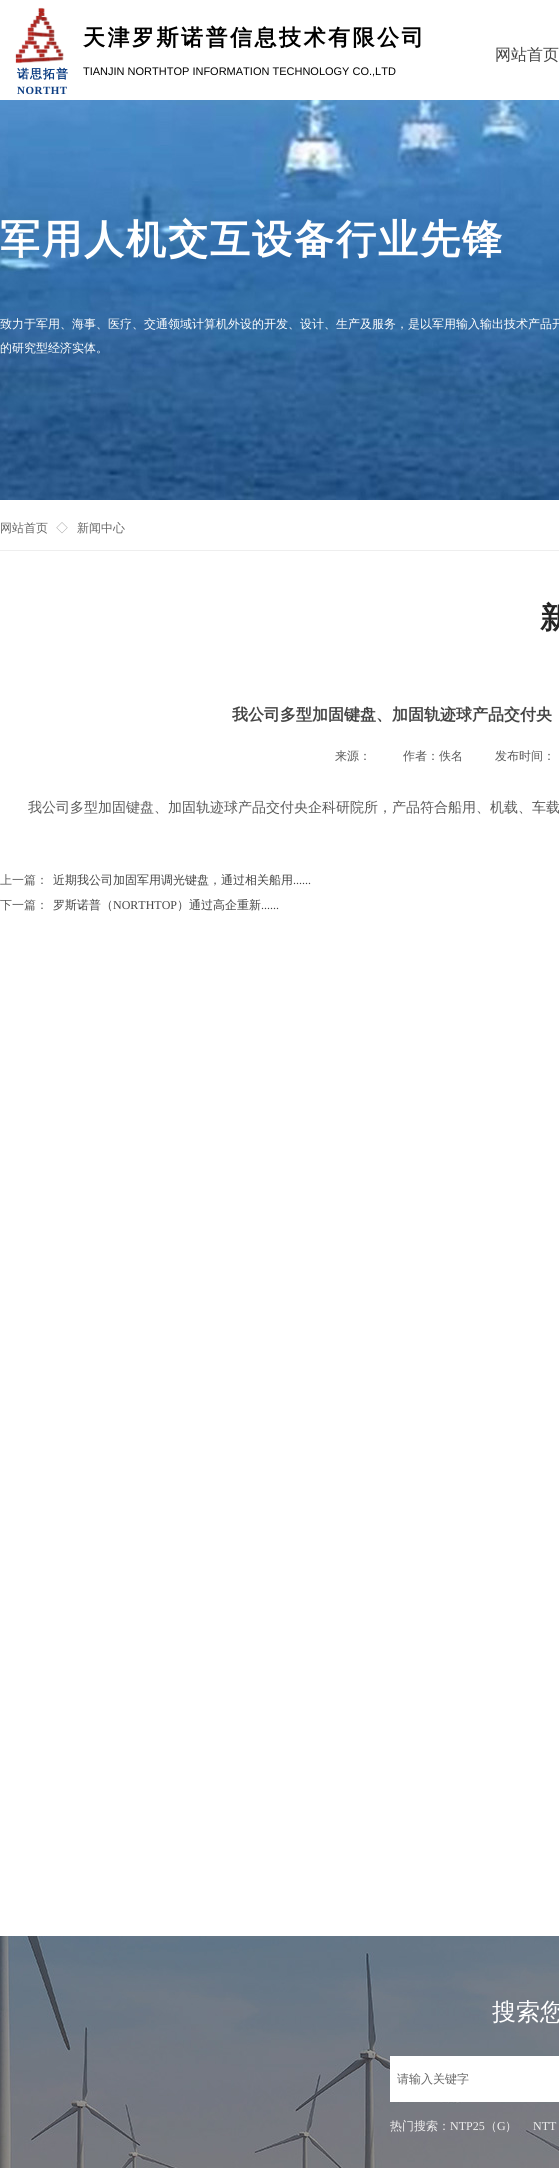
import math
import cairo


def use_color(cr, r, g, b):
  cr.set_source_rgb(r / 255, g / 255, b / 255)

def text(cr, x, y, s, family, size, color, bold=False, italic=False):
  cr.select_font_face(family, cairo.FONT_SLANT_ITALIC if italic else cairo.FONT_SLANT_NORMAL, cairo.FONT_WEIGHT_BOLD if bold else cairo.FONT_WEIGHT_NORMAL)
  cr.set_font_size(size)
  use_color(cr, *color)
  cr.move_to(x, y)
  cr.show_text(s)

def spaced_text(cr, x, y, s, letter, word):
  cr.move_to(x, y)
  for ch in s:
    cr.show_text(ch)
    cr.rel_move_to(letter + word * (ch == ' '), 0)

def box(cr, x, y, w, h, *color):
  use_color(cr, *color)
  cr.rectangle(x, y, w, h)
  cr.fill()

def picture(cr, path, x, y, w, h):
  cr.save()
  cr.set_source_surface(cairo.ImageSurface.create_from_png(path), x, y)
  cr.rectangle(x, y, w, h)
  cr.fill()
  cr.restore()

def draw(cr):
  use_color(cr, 255, 255, 255)
  cr.paint()
  picture(cr, "img_01.png", 15, 7, 49, 57)
  picture(cr, "img_02.png", 0, 100, 559, 400)
  box(cr, 0, 550, 559, 1, 238, 238, 238)
  picture(cr, "img_03.png", 0, 1936, 559, 232)
  box(cr, 390, 2056, 169, 46, 255, 255, 255)
  cr.select_font_face("WenQuanYi Zen Hei", cairo.FONT_SLANT_NORMAL, cairo.FONT_WEIGHT_BOLD)
  cr.set_font_size(22)
  use_color(cr, 0, 0, 0)
  spaced_text(cr, 83, 45, "天津罗斯诺普信息技术有限公司", 2.5, 0)
  text(cr, 83, 75, "TIANJIN NORTHTOP INFORMATION TECHNOLOGY CO.,LTD", "Liberation Sans", 11, (0, 0, 0))
  text(cr, 495, 60, "网站首页", "WenQuanYi Zen Hei Medium", 16, (68, 68, 68))
  cr.select_font_face("WenQuanYi Zen Hei", cairo.FONT_SLANT_NORMAL, cairo.FONT_WEIGHT_BOLD)
  cr.set_font_size(12)
  use_color(cr, 13, 62, 131)
  spaced_text(cr, 17, 78, "诺思拓普", 1, 0)
  cr.select_font_face("Liberation Serif", cairo.FONT_SLANT_NORMAL, cairo.FONT_WEIGHT_BOLD)
  cr.set_font_size(11)
  spaced_text(cr, 17, 94, "NORTHT", 0.5, 0)
  cr.select_font_face("WenQuanYi Zen Hei", cairo.FONT_SLANT_NORMAL, cairo.FONT_WEIGHT_BOLD)
  cr.set_font_size(40)
  use_color(cr, 255, 255, 255)
  spaced_text(cr, 0, 253, "军用人机交互设备行业先锋", 2, 0)
  text(cr, 0, 328, "致力于军用、海事、医疗、交通领域计算机外设的开发、设计、生产及服务，是以军用输入输出技术产品开", "WenQuanYi Zen Hei Medium", 12, (255, 255, 255))
  text(cr, 0, 352, "的研究型经济实体。", "WenQuanYi Zen Hei Medium", 12, (255, 255, 255))
  text(cr, 0, 532, "网站首页", "WenQuanYi Zen Hei Medium", 12, (102, 102, 102))
  text(cr, 56, 532, "◇", "WenQuanYi Zen Hei Medium", 12, (153, 153, 153))
  text(cr, 77, 532, "新闻中心", "WenQuanYi Zen Hei Medium", 12, (102, 102, 102))
  text(cr, 540, 628, "新", "WenQuanYi Zen Hei", 30, (36, 36, 36), bold=True)
  text(cr, 232, 720, "我公司多型加固键盘、加固轨迹球产品交付央", "WenQuanYi Zen Hei", 16, (68, 68, 68), bold=True)
  text(cr, 335, 760, "来源：", "WenQuanYi Zen Hei Medium", 12, (89, 89, 89))
  text(cr, 403, 760, "作者：佚名", "WenQuanYi Zen Hei Medium", 12, (89, 89, 89))
  text(cr, 495, 760, "发布时间：", "WenQuanYi Zen Hei Medium", 12, (89, 89, 89))
  text(cr, 28, 812, "我公司多型加固键盘、加固轨迹球产品交付央企科研院所，产品符合船用、机载、车载", "WenQuanYi Zen Hei Medium", 14, (89, 89, 89))
  text(cr, 0, 884, "上一篇：", "WenQuanYi Zen Hei Medium", 12, (89, 89, 89))
  text(cr, 53, 884, "近期我公司加固军用调光键盘，通过相关船用", "WenQuanYi Zen Hei Medium", 12, (68, 68, 68))
  text(cr, 293, 884, "......", "Liberation Serif", 12, (68, 68, 68))
  text(cr, 0, 909, "下一篇：", "WenQuanYi Zen Hei Medium", 12, (89, 89, 89))
  text(cr, 53, 909, "罗斯诺普（", "WenQuanYi Zen Hei Medium", 12, (68, 68, 68))
  text(cr, 113, 909, "NORTHTOP", "Liberation Serif", 12, (68, 68, 68))
  text(cr, 177, 909, "）通过高企重新", "WenQuanYi Zen Hei Medium", 12, (68, 68, 68))
  text(cr, 261, 909, "......", "Liberation Serif", 12, (68, 68, 68))
  text(cr, 492, 2020, "搜索您", "WenQuanYi Zen Hei Medium", 24, (255, 255, 255))
  text(cr, 397, 2083, "请输入关键字", "WenQuanYi Zen Hei Medium", 12, (102, 102, 102))
  text(cr, 390, 2130, "热门搜索：", "WenQuanYi Zen Hei Medium", 12, (240, 240, 240))
  text(cr, 450, 2130, "NTP25", "Liberation Serif", 12, (240, 240, 240))
  text(cr, 485, 2130, "（", "WenQuanYi Zen Hei Medium", 12, (240, 240, 240))
  text(cr, 497, 2130, "G", "Liberation Serif", 12, (240, 240, 240))
  text(cr, 505, 2130, "）", "WenQuanYi Zen Hei Medium", 12, (240, 240, 240))
  text(cr, 533, 2130, "NTT", "Liberation Serif", 12, (240, 240, 240))


surface = cairo.ImageSurface(cairo.FORMAT_RGB24, 559, 2168)
cr = cairo.Context(surface)
options = cairo.FontOptions()
options.set_hint_metrics(cairo.HINT_METRICS_OFF)
options.set_hint_style(cairo.HINT_STYLE_NONE)
cr.set_font_options(options)
cr.set_miter_limit(4)
draw(cr)
surface.write_to_png("out.png")
